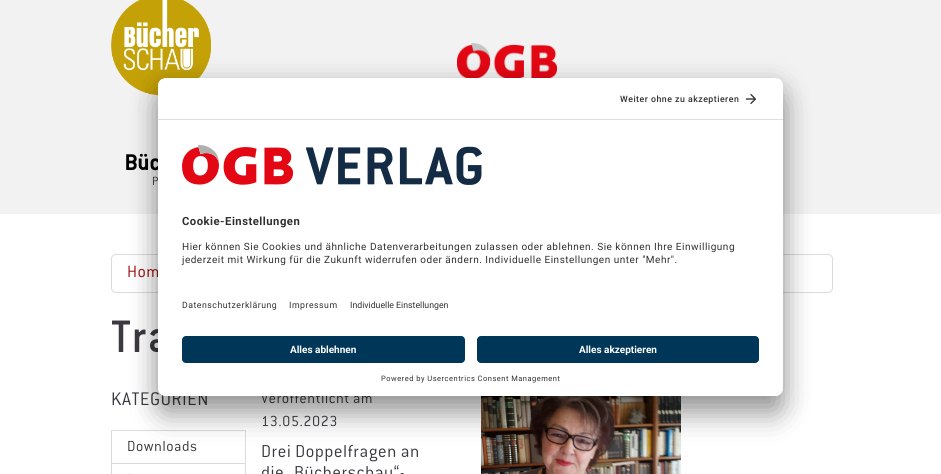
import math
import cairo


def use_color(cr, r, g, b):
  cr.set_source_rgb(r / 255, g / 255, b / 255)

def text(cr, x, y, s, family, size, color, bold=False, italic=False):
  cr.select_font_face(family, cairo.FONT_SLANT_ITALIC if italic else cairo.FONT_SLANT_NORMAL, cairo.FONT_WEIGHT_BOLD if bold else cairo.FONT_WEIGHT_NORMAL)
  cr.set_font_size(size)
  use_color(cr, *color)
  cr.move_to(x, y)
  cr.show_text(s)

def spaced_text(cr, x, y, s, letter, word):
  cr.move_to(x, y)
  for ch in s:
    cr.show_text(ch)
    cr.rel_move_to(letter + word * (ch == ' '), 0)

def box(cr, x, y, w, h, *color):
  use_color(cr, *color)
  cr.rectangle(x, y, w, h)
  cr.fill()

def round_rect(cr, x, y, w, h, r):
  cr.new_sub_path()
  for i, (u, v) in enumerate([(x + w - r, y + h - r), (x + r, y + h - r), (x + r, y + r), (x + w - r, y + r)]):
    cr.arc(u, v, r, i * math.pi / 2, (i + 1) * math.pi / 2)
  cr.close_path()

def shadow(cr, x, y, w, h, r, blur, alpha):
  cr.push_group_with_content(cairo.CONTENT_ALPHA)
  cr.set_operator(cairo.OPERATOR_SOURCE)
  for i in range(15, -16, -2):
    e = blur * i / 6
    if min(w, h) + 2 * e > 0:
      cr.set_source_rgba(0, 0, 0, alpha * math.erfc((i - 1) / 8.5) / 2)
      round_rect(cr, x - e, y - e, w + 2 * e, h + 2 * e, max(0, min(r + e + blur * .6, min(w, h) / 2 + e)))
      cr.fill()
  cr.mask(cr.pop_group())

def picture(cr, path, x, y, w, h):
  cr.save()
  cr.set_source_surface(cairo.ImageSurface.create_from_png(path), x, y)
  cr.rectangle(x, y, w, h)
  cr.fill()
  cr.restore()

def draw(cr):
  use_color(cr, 255, 255, 255)
  cr.paint()
  box(cr, 0, 0, 941, 214, 242, 242, 242)
  picture(cr, "img_01.png", 111, 0, 100, 95)
  picture(cr, "img_02.png", 126, 153, 32, 18)
  picture(cr, "img_03.png", 153, 176, 5, 9)
  picture(cr, "img_04.png", 457, 43, 100, 35)
  round_rect(cr, 111.5, 254.5, 721, 38, 4.5)
  use_color(cr, 219, 219, 219)
  cr.set_line_width(1)
  cr.stroke()
  picture(cr, "img_05.png", 128, 265, 30, 13)
  picture(cr, "img_06.png", 112, 320, 46, 32)
  picture(cr, "img_07.png", 112, 392, 95, 14)
  cr.rectangle(111.5, 430.5, 134, 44)
  cr.stroke()
  box(cr, 112, 463, 133, 1, 219, 219, 219)
  picture(cr, "img_08.png", 128, 440, 69, 12)
  picture(cr, "img_09.png", 128, 473, 41, 1)
  picture(cr, "img_10.png", 262, 396, 110, 8)
  picture(cr, "img_11.png", 262, 415, 75, 12)
  picture(cr, "img_12.png", 481, 396, 200, 78)
  picture(cr, "img_13.png", 262, 444, 156, 18)
  picture(cr, "img_14.png", 262, 465, 142, 9)
  use_color(cr, 0, 0, 0)
  shadow(cr, 158, 98, 625, 318, 8, 14, 0.3)
  shadow(cr, 158, 83, 625, 318, 8, 13, 0.22)
  use_color(cr, 255, 255, 255)
  round_rect(cr, 158, 78, 625, 318, 8)
  cr.fill()
  cr.save()
  round_rect(cr, 158, 78, 625, 318, 8)
  cr.clip()
  cr.new_path()
  cr.move_to(166, 78)
  cr.line_to(775, 78)
  cr.curve_to(779.5, 78, 783, 81.5, 783, 86)
  cr.line_to(783, 328)
  cr.line_to(158, 328)
  cr.line_to(158, 86)
  cr.curve_to(158, 81.5, 161.5, 78, 166, 78)
  cr.close_path()
  cr.clip()
  box(cr, 158, 79, 625, 40, 255, 255, 255)
  cr.restore()
  box(cr, 158, 119, 625, 1, 222, 222, 222)
  picture(cr, "img_15.png", 745, 94, 11, 10)
  picture(cr, "img_16.png", 182, 145, 300, 40)
  use_color(cr, 255, 255, 255)
  cr.new_path()
  cr.move_to(158, 328)
  cr.line_to(783, 328)
  cr.line_to(783, 388)
  cr.curve_to(783, 392.5, 779.5, 396, 775, 396)
  cr.line_to(166, 396)
  cr.curve_to(161.5, 396, 158, 392.5, 158, 388)
  cr.close_path()
  cr.fill()
  use_color(cr, 0, 55, 88)
  round_rect(cr, 182, 336, 283, 27, 4)
  cr.fill()
  round_rect(cr, 477, 336, 282, 27, 4)
  cr.fill()
  cr.select_font_face("Roboto Medium")
  cr.set_font_size(8.75)
  use_color(cr, 48, 48, 48)
  spaced_text(cr, 620, 102, "Weiter ohne zu akzeptieren", 0.5, 0)
  cr.select_font_face("Roboto", cairo.FONT_SLANT_NORMAL, cairo.FONT_WEIGHT_BOLD)
  cr.set_font_size(11.25)
  spaced_text(cr, 182, 225, "Cookie-Einstellungen", 0.5, 0)
  cr.select_font_face("Roboto")
  cr.set_font_size(10)
  spaced_text(cr, 182, 250, "Hier können Sie Cookies und ähnliche Datenverarbeitungen zulassen oder ablehnen. Sie können Ihre Einwilligung", 0.5, 0)
  spaced_text(cr, 182, 263, "jederzeit mit Wirkung für die Zukunft widerrufen oder ändern. Individuelle Einstellungen unter \"Mehr\".", 0.5, 0)
  cr.set_font_size(8.75)
  spaced_text(cr, 182, 308, "Datenschutzerklärung", 0.5, 0)
  spaced_text(cr, 289, 308, "Impressum", 0.5, 0)
  text(cr, 350, 308, "Individuelle Einstellungen", "Roboto", 8.75, (48, 48, 48))
  text(cr, 290, 353, "Alles ablehnen", "Roboto", 10, (255, 255, 255), bold=True)
  text(cr, 579, 353, "Alles akzeptieren", "Roboto", 10, (255, 255, 255), bold=True)
  cr.select_font_face("Roboto")
  cr.set_font_size(7.5)
  use_color(cr, 48, 48, 48)
  spaced_text(cr, 381, 381, "Powered by Usercentrics Consent Management", 0.5, 0)


surface = cairo.ImageSurface(cairo.FORMAT_RGB24, 941, 474)
cr = cairo.Context(surface)
options = cairo.FontOptions()
options.set_hint_metrics(cairo.HINT_METRICS_OFF)
options.set_hint_style(cairo.HINT_STYLE_NONE)
cr.set_font_options(options)
cr.set_miter_limit(4)
draw(cr)
surface.write_to_png("out.png")
